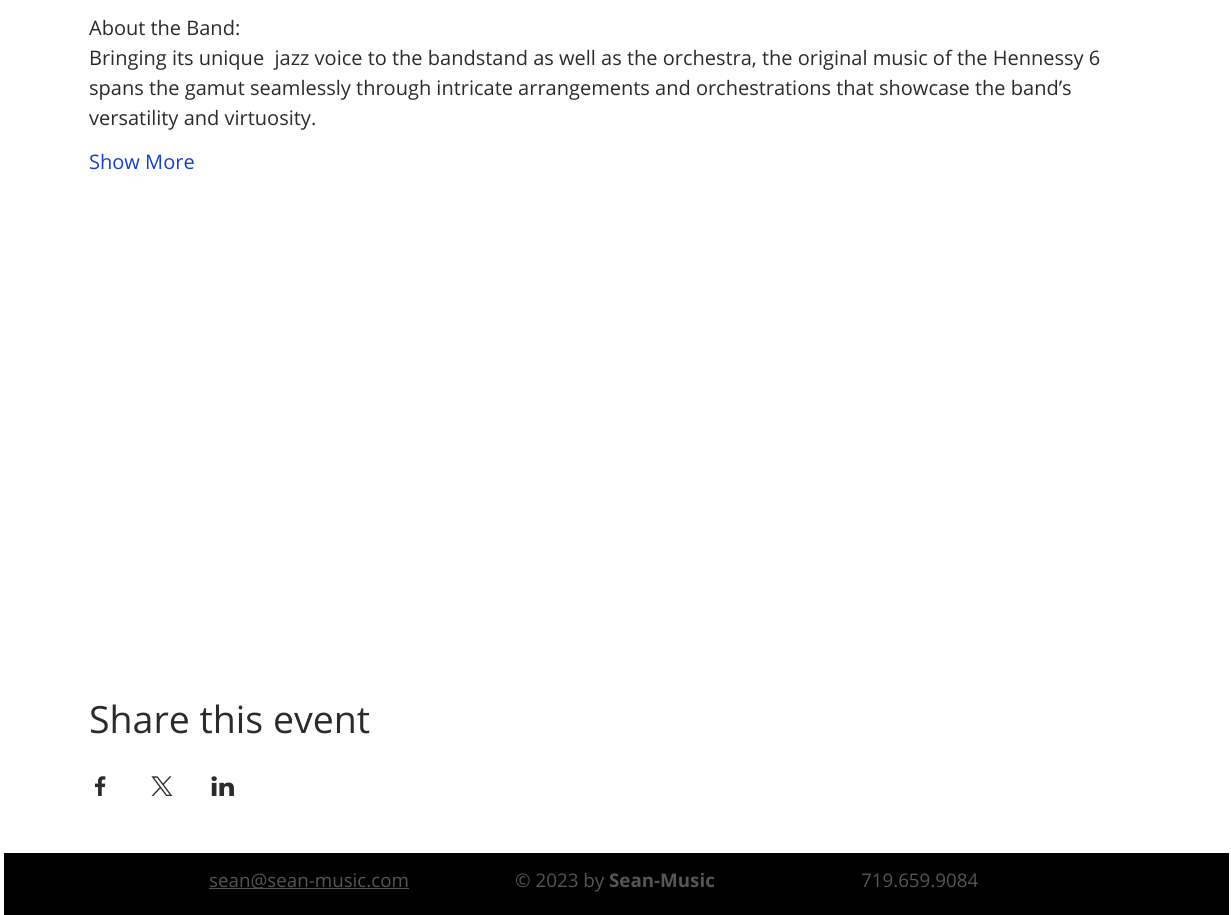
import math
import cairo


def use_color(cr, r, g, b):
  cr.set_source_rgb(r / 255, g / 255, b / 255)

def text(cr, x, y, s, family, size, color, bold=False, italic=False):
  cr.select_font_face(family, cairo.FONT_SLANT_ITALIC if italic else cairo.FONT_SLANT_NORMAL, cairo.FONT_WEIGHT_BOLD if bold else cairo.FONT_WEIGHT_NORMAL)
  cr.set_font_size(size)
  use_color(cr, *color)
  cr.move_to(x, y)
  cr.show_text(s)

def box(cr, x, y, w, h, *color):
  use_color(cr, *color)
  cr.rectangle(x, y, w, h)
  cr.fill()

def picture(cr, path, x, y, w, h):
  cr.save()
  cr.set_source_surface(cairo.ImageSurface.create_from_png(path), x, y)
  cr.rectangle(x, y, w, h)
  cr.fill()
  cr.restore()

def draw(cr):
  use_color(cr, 255, 255, 255)
  cr.paint()
  picture(cr, "img_01.png", 95, 776, 11, 20)
  picture(cr, "img_02.png", 151, 776, 22, 20)
  picture(cr, "img_03.png", 211, 776, 23, 20)
  box(cr, 4, 853, 1225, 62, 0, 0, 0)
  box(cr, 209, 888, 200, 1, 85, 85, 85)
  text(cr, 89, 35, "About the Band:", "Open Sans", 20, (43, 43, 43))
  text(cr, 89, 65, "Bringing its unique  jazz voice to the bandstand as well as the orchestra, the original music of the Hennessy 6", "Open Sans", 20, (43, 43, 43))
  text(cr, 89, 95, "spans the gamut seamlessly through intricate arrangements and orchestrations that showcase the band’s", "Open Sans", 20, (43, 43, 43))
  text(cr, 89, 125, "versatility and virtuosity.", "Open Sans", 20, (43, 43, 43))
  text(cr, 89, 169, "Show More", "Open Sans", 20, (23, 63, 207))
  text(cr, 89, 733, "Share this event", "Open Sans", 37.5, (43, 43, 43))
  text(cr, 209, 887, "sean@sean-music.com", "Open Sans", 18.75, (85, 85, 85))
  text(cr, 515, 887, "© 2023 by", "Open Sans", 18.75, (85, 85, 85))
  text(cr, 609, 887, "Sean-Music", "Open Sans", 18.75, (85, 85, 85), bold=True)
  text(cr, 861, 887, "719.659.9084", "Open Sans", 18.75, (85, 85, 85))


surface = cairo.ImageSurface(cairo.FORMAT_RGB24, 1231, 915)
cr = cairo.Context(surface)
options = cairo.FontOptions()
options.set_hint_metrics(cairo.HINT_METRICS_OFF)
options.set_hint_style(cairo.HINT_STYLE_NONE)
cr.set_font_options(options)
cr.set_miter_limit(4)
draw(cr)
surface.write_to_png("out.png")
